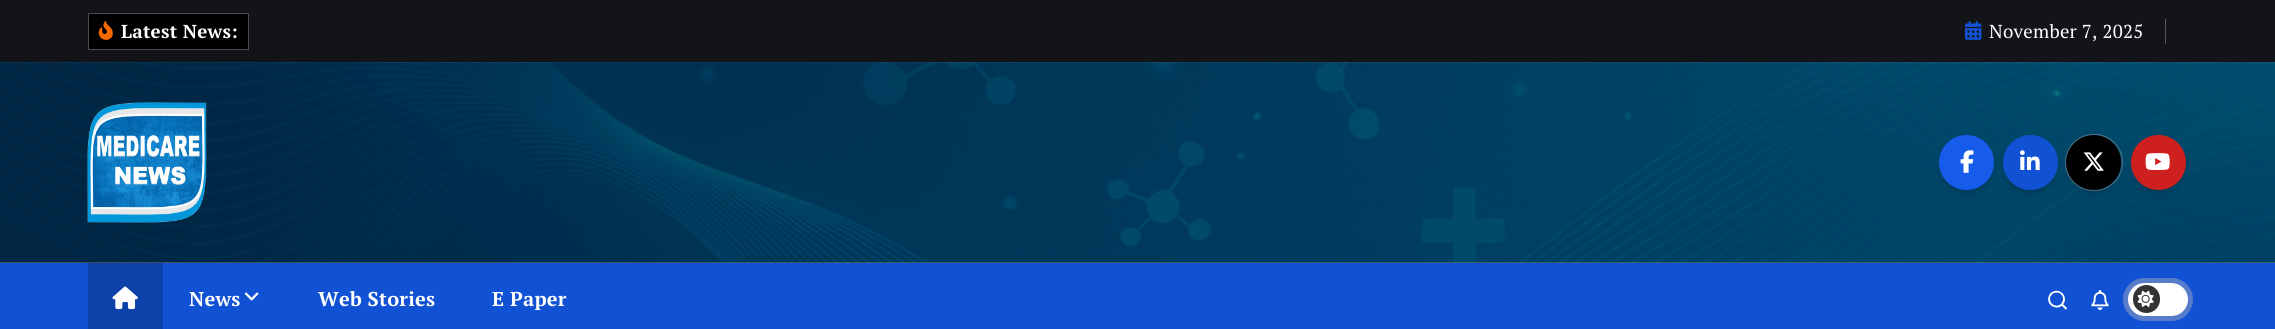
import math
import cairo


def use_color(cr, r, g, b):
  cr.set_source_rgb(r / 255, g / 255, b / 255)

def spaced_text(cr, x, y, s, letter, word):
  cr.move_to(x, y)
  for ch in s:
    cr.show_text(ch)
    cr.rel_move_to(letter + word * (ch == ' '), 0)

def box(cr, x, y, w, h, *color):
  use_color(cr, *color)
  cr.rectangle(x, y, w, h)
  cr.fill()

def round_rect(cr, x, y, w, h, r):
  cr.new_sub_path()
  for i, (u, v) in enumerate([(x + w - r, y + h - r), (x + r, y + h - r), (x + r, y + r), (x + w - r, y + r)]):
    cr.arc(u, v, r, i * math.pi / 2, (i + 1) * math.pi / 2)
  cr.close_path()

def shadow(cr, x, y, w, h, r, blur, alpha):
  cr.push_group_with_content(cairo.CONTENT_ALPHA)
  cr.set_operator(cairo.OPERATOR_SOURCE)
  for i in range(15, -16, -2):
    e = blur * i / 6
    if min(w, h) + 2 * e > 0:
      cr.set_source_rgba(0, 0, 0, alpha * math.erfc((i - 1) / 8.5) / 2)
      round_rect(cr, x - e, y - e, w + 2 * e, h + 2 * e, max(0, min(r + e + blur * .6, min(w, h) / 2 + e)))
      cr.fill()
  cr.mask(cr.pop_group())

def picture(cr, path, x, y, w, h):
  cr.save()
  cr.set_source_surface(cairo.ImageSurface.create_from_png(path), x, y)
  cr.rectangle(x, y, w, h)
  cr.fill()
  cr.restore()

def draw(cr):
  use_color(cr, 123, 123, 123)
  cr.paint()
  box(cr, 0, 0, 2275, 63, 18, 20, 24)
  use_color(cr, 0, 0, 0)
  cr.rectangle(88.5, 13.5, 160, 36)
  cr.fill_preserve()
  use_color(cr, 76, 76, 76)
  cr.set_line_width(1)
  cr.stroke()
  picture(cr, "img_01.png", 98, 21, 15, 19)
  picture(cr, "img_02.png", 1965, 21, 17, 19)
  box(cr, 2165, 19, 1, 25, 86, 88, 90)
  picture(cr, "img_03.png", 0, 62, 2275, 201)
  picture(cr, "img_04.png", 87, 102, 120, 121)
  use_color(cr, 7, 10, 25)
  shadow(cr, 1940, 140, 53, 53, 26.5, 3, 0.2)
  use_color(cr, 23, 91, 235)
  cr.arc(1966.5, 162.5, 27.5, 0, 2 * math.pi)
  cr.fill()
  picture(cr, "img_05.png", 1960, 150, 14, 23)
  use_color(cr, 7, 10, 25)
  shadow(cr, 2004, 140, 52, 53, 26, 3, 0.2)
  use_color(cr, 17, 81, 211)
  cr.arc(2030.5, 162.5, 27.5, 0, 2 * math.pi)
  cr.fill()
  picture(cr, "img_06.png", 2020, 150, 20, 20)
  use_color(cr, 7, 10, 25)
  shadow(cr, 2068, 140, 52, 53, 26, 3, 0.2)
  use_color(cr, 0, 0, 0)
  cr.arc(2093.5, 162.5, 27.5, 0, 2 * math.pi)
  cr.fill()
  picture(cr, "img_07.png", 2083, 152, 21, 19)
  round_rect(cr, 2065.5, 134.5, 57, 56, 28)
  cr.set_source_rgba(0.741, 0.741, 0.741, 0.4)
  cr.stroke()
  use_color(cr, 7, 10, 25)
  shadow(cr, 2133, 140, 52, 53, 26, 3, 0.2)
  use_color(cr, 205, 32, 31)
  cr.arc(2158.5, 162.5, 27.5, 0, 2 * math.pi)
  cr.fill()
  picture(cr, "img_08.png", 2145, 153, 25, 17)
  box(cr, 0, 263, 2275, 66, 17, 81, 211)
  box(cr, 88, 263, 75, 66, 14, 66, 171)
  picture(cr, "img_09.png", 112, 286, 26, 24)
  picture(cr, "img_10.png", 244, 292, 15, 9)
  picture(cr, "img_11.png", 2048, 290, 19, 20)
  picture(cr, "img_12.png", 2091, 290, 18, 20)
  round_rect(cr, 2125.5, 280.5, 65, 38, 19)
  use_color(cr, 86, 124, 202)
  cr.set_line_width(5)
  cr.stroke()
  use_color(cr, 255, 255, 255)
  round_rect(cr, 2128, 283, 60, 33, 16.5)
  cr.fill()
  use_color(cr, 51, 51, 51)
  round_rect(cr, 2133, 285, 27, 28, 13.5)
  cr.fill()
  picture(cr, "img_13.png", 2137, 290, 17, 17)
  cr.select_font_face("PT Serif", cairo.FONT_SLANT_NORMAL, cairo.FONT_WEIGHT_BOLD)
  cr.set_font_size(18.75)
  use_color(cr, 255, 255, 255)
  spaced_text(cr, 121, 38, "Latest News:", 0.25, 0)
  cr.select_font_face("PT Serif")
  spaced_text(cr, 1989, 38, "November 7, 2025", 0.25, 0)
  cr.select_font_face("PT Serif", cairo.FONT_SLANT_NORMAL, cairo.FONT_WEIGHT_BOLD)
  cr.set_font_size(20)
  spaced_text(cr, 189, 306, "News", 0.25, 0)
  spaced_text(cr, 318, 306, "Web Stories", 0.25, 0)
  spaced_text(cr, 492, 306, "E Paper", 0.25, 0)


surface = cairo.ImageSurface(cairo.FORMAT_RGB24, 2275, 329)
cr = cairo.Context(surface)
options = cairo.FontOptions()
options.set_hint_metrics(cairo.HINT_METRICS_OFF)
options.set_hint_style(cairo.HINT_STYLE_NONE)
cr.set_font_options(options)
cr.set_miter_limit(4)
draw(cr)
surface.write_to_png("out.png")
